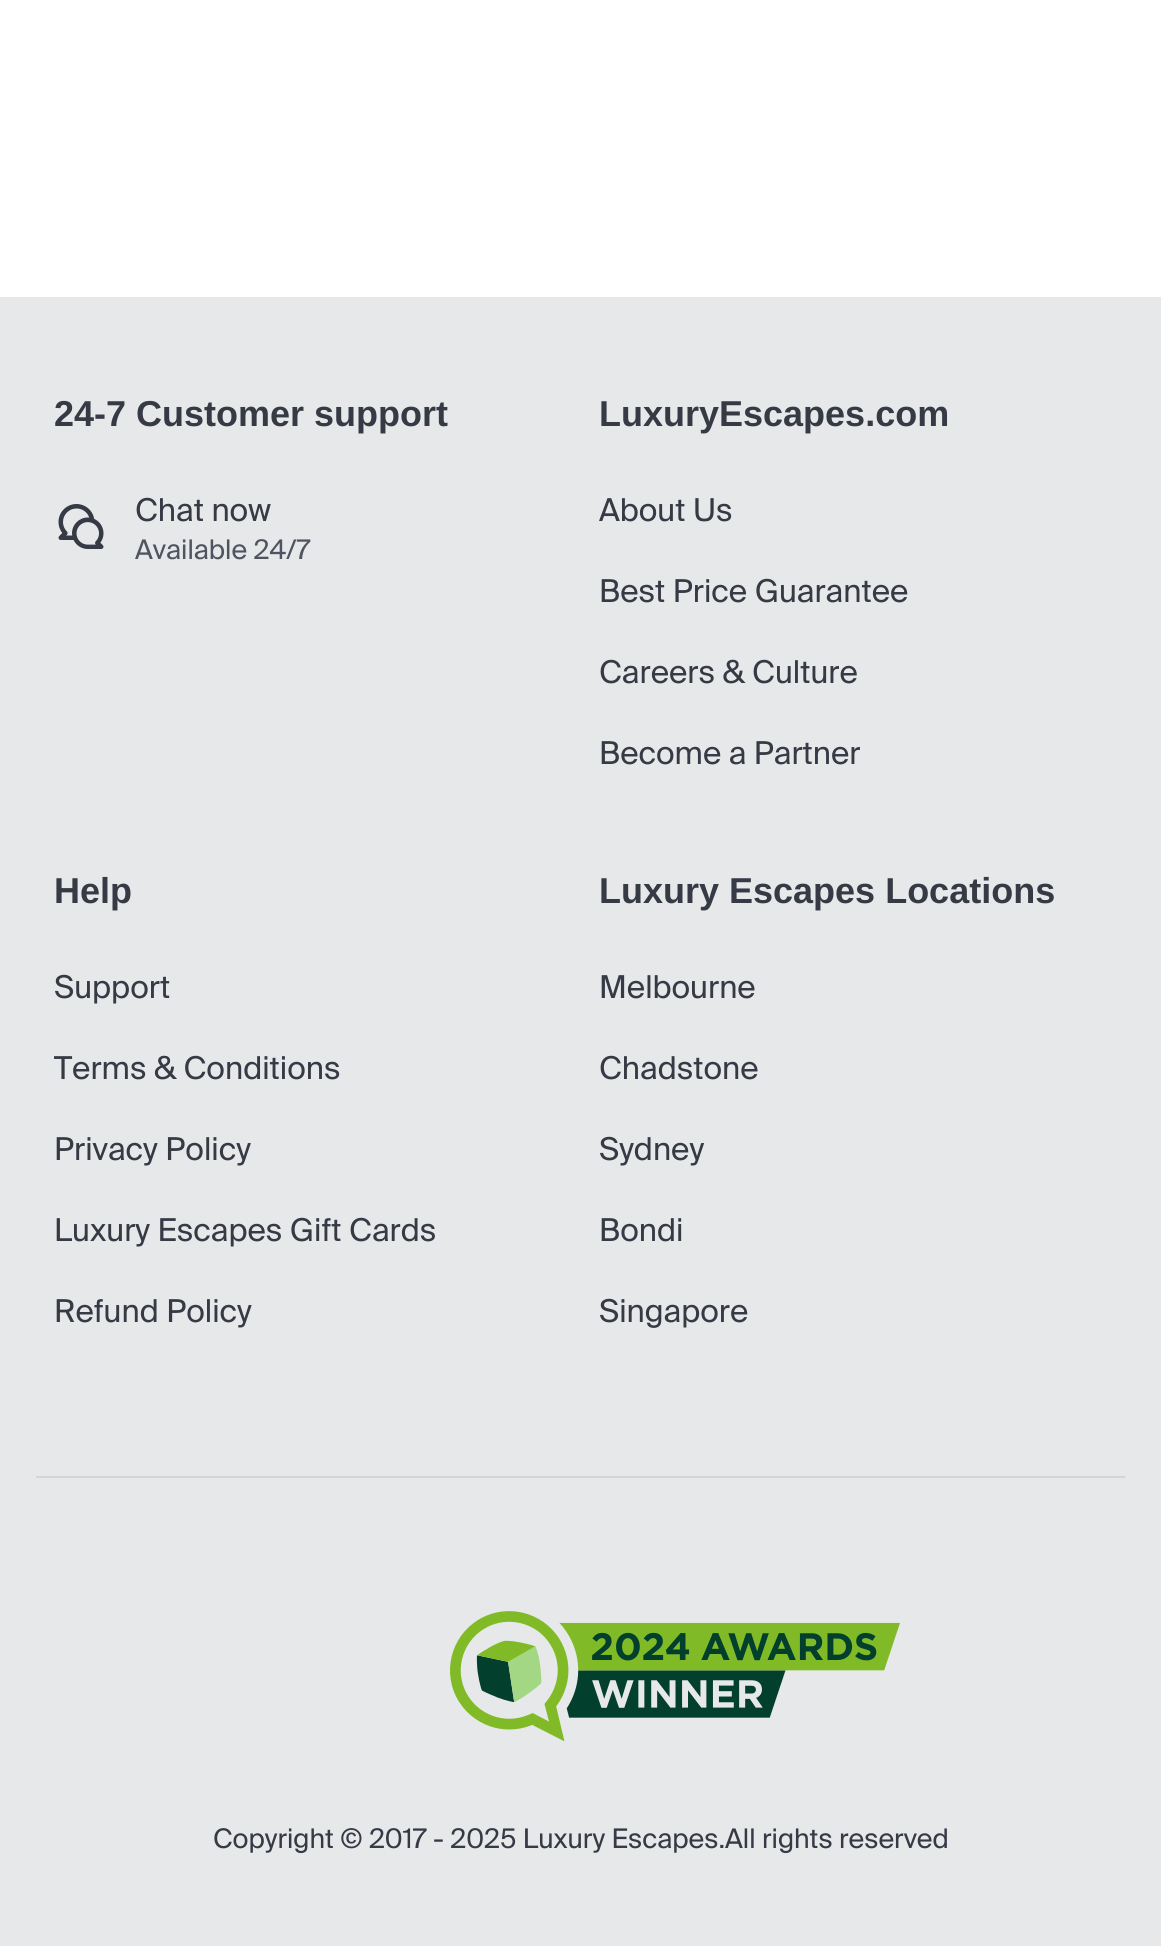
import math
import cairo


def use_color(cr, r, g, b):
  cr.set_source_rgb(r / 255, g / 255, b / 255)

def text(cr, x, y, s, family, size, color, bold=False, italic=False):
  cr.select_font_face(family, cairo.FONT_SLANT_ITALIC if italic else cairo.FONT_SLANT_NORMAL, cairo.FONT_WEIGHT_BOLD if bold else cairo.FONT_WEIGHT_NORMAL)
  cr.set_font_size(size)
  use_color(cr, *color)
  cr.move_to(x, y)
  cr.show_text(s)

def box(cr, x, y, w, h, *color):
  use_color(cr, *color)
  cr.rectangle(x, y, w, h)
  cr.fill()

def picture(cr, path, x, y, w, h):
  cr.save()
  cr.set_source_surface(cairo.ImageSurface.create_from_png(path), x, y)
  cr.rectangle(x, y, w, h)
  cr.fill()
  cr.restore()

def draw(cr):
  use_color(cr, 231, 232, 234)
  cr.paint()
  box(cr, 0, 0, 1161, 297, 255, 255, 255)
  picture(cr, "img_01.png", 58, 504, 46, 45)
  box(cr, 36, 1476, 1089, 2, 212, 213, 216)
  picture(cr, "img_02.png", 450, 1611, 450, 131)
  text(cr, 54, 426, "24-7 Customer support", "Liberation Sans", 36, (54, 58, 69), bold=True)
  text(cr, 135, 521, "Chat now", "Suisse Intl", 31.5, (54, 58, 69))
  text(cr, 135, 559, "Available 24/7", "Suisse Intl", 27, (80, 84, 96))
  text(cr, 599, 426, "LuxuryEscapes.com", "Liberation Sans", 36, (54, 58, 69), bold=True)
  text(cr, 599, 521, "About Us", "Suisse Intl", 31.5, (54, 58, 69))
  text(cr, 599, 602, "Best Price Guarantee", "Suisse Intl", 31.5, (54, 58, 69))
  text(cr, 599, 683, "Careers & Culture", "Suisse Intl", 31.5, (54, 58, 69))
  text(cr, 599, 764, "Become a Partner", "Suisse Intl", 31.5, (54, 58, 69))
  text(cr, 54, 903, "Help", "Liberation Sans", 36, (54, 58, 69), bold=True)
  text(cr, 54, 998, "Support", "Suisse Intl", 31.5, (54, 58, 69))
  text(cr, 54, 1079, "Terms & Conditions", "Suisse Intl", 31.5, (54, 58, 69))
  text(cr, 54, 1160, "Privacy Policy", "Suisse Intl", 31.5, (54, 58, 69))
  text(cr, 54, 1241, "Luxury Escapes Gift Cards", "Suisse Intl", 31.5, (54, 58, 69))
  text(cr, 54, 1322, "Refund Policy", "Suisse Intl", 31.5, (54, 58, 69))
  text(cr, 599, 903, "Luxury Escapes Locations", "Liberation Sans", 36, (54, 58, 69), bold=True)
  text(cr, 599, 998, "Melbourne", "Suisse Intl", 31.5, (54, 58, 69))
  text(cr, 599, 1079, "Chadstone", "Suisse Intl", 31.5, (54, 58, 69))
  text(cr, 599, 1160, "Sydney", "Suisse Intl", 31.5, (54, 58, 69))
  text(cr, 599, 1241, "Bondi", "Suisse Intl", 31.5, (54, 58, 69))
  text(cr, 599, 1322, "Singapore", "Suisse Intl", 31.5, (54, 58, 69))
  text(cr, 213, 1848, "Copyright © 2017 - 2025 Luxury Escapes.All rights reserved", "Suisse Intl", 27, (54, 58, 69))


surface = cairo.ImageSurface(cairo.FORMAT_RGB24, 1161, 1946)
cr = cairo.Context(surface)
options = cairo.FontOptions()
options.set_hint_metrics(cairo.HINT_METRICS_OFF)
options.set_hint_style(cairo.HINT_STYLE_NONE)
cr.set_font_options(options)
cr.set_miter_limit(4)
draw(cr)
surface.write_to_png("out.png")
